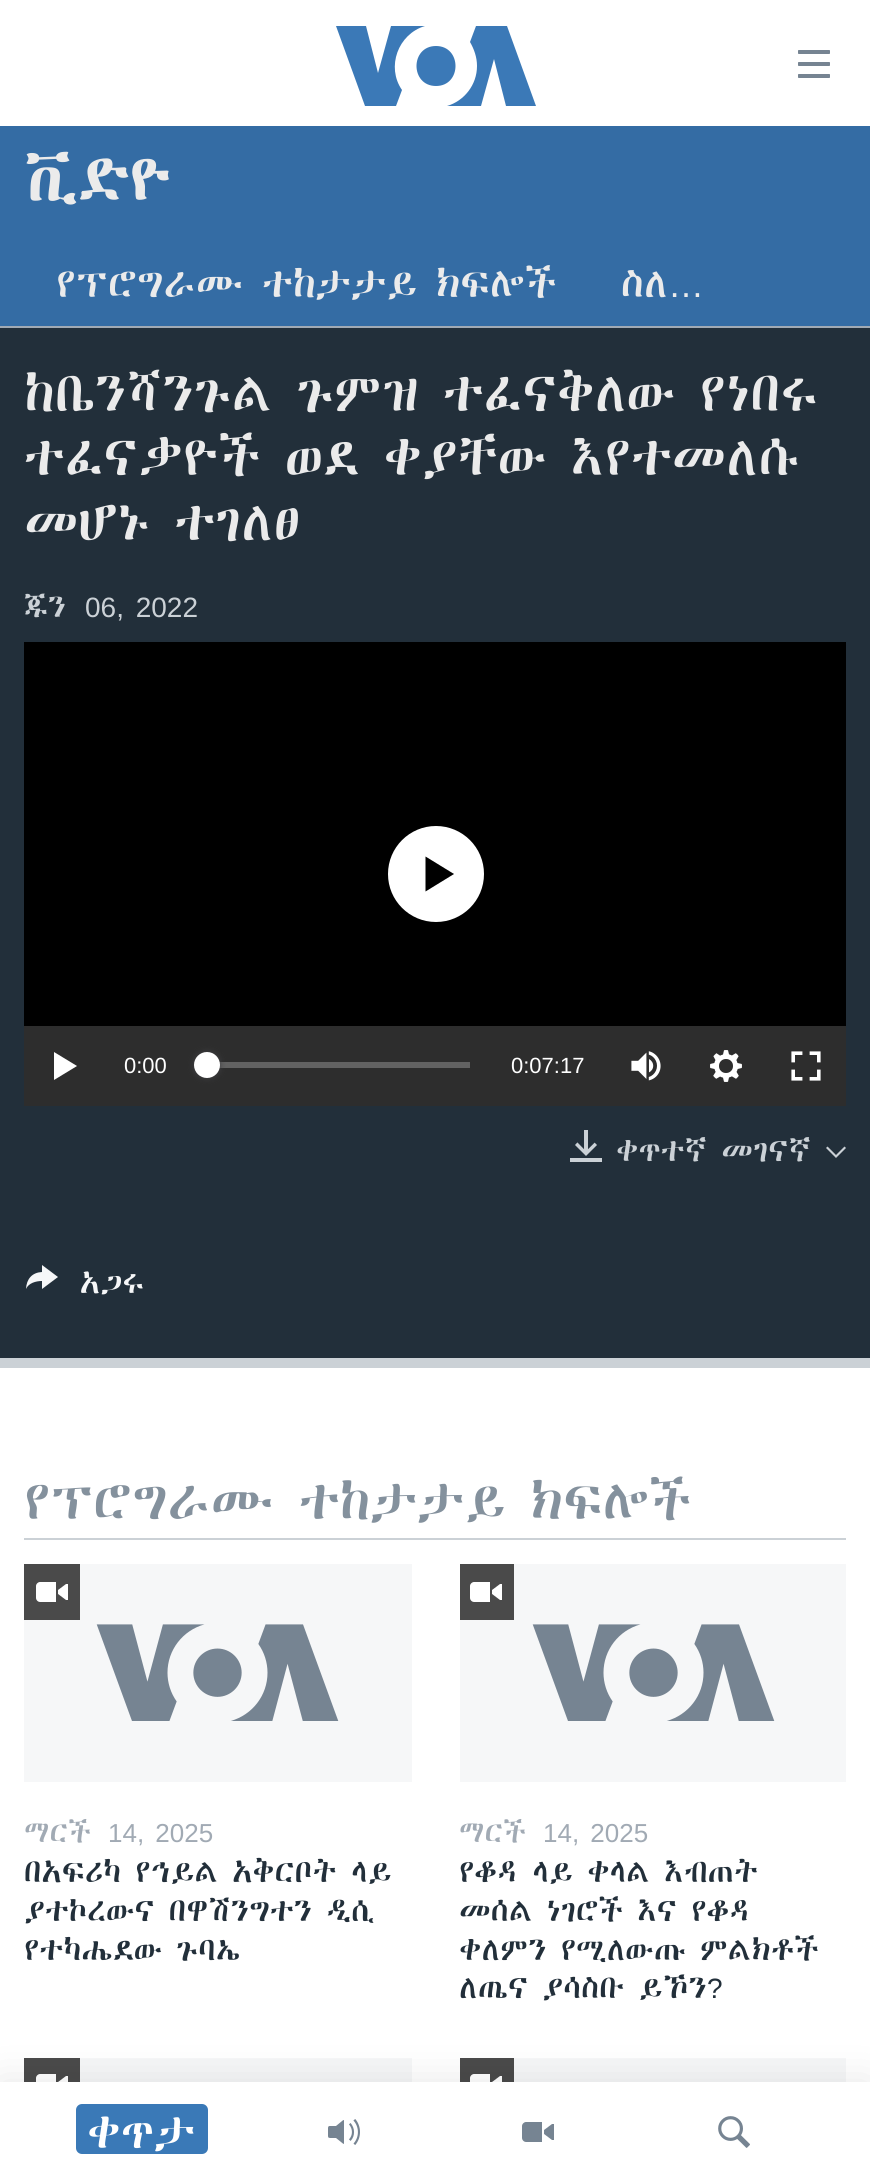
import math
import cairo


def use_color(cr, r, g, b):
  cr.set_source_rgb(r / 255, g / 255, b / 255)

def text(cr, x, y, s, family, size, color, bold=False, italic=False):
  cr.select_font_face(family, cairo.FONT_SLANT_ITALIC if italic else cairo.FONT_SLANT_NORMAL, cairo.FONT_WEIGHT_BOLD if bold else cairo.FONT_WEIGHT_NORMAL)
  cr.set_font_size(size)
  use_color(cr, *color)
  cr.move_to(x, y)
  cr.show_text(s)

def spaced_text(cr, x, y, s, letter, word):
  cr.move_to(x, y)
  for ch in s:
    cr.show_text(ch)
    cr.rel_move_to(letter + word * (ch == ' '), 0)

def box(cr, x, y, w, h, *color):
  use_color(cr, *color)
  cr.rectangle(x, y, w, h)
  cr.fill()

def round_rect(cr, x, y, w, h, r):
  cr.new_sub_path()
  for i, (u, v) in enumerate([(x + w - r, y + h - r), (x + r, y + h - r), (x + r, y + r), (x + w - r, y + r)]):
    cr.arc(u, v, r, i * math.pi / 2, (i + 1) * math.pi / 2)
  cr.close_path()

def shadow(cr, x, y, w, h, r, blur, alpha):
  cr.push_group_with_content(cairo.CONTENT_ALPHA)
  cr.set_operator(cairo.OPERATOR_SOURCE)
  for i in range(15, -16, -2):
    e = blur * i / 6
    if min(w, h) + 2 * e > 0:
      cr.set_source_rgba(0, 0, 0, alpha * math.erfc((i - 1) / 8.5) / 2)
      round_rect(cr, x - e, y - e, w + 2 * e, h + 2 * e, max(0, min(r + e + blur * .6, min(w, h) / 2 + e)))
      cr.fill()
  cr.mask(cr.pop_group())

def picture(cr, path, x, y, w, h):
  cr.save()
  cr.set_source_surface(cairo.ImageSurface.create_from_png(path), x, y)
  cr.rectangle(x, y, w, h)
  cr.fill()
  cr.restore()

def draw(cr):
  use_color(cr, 255, 255, 255)
  cr.paint()
  box(cr, 0, 126, 870, 200, 52, 108, 164)
  box(cr, 0, 328, 870, 1030, 34, 47, 58)
  box(cr, 0, 326, 870, 2, 161, 170, 180)
  box(cr, 0, 1358, 870, 10, 203, 209, 214)
  box(cr, 24, 642, 822, 384, 0, 0, 0)
  use_color(cr, 255, 255, 255)
  cr.arc(436, 874, 48, 0, 2 * math.pi)
  cr.fill()
  use_color(cr, 0, 0, 0)
  cr.new_path()
  cr.move_to(425.5, 891.5)
  cr.line_to(454, 874)
  cr.line_to(425.5, 856.5)
  cr.close_path()
  cr.fill()
  box(cr, 24, 1026, 822, 80, 45, 45, 45)
  use_color(cr, 255, 255, 255)
  cr.new_path()
  cr.move_to(54, 1080)
  cr.line_to(77, 1066)
  cr.line_to(54, 1052)
  cr.close_path()
  cr.fill()
  box(cr, 219, 1062, 251, 6, 98, 98, 98)
  use_color(cr, 65, 65, 68)
  shadow(cr, 194, 1052, 26, 26, 13, 3, 1)
  use_color(cr, 255, 255, 255)
  cr.arc(207, 1065, 13, 0, 2 * math.pi)
  cr.fill()
  picture(cr, "img_01.png", 631, 1051, 30, 30)
  picture(cr, "img_02.png", 710, 1050, 32, 32)
  picture(cr, "img_03.png", 791, 1051, 30, 30)
  picture(cr, "img_04.png", 570, 1130, 32, 32)
  use_color(cr, 203, 209, 214)
  cr.new_path()
  cr.move_to(826, 1148)
  cr.line_to(836, 1158)
  cr.line_to(846, 1148)
  cr.line_to(844.5, 1146.5)
  cr.line_to(836, 1155)
  cr.line_to(827.5, 1146.5)
  cr.close_path()
  cr.fill()
  use_color(cr, 246, 247, 248)
  cr.new_path()
  cr.move_to(26, 1289)
  cr.curve_to(26.5, 1279, 32, 1272.5, 42, 1272)
  cr.line_to(42, 1265)
  cr.line_to(58, 1277)
  cr.line_to(42, 1289)
  cr.line_to(42, 1281)
  cr.curve_to(36, 1281, 28.5, 1283, 26, 1289)
  cr.close_path()
  cr.fill()
  box(cr, 24, 1538, 822, 2, 203, 209, 214)
  box(cr, 24, 1564, 388, 218, 246, 247, 248)
  picture(cr, "img_05.png", 96, 1624, 243, 97)
  box(cr, 24, 1564, 56, 56, 74, 74, 74)
  picture(cr, "img_06.png", 36, 1582, 32, 20)
  box(cr, 460, 1564, 386, 218, 246, 247, 248)
  picture(cr, "img_05.png", 532, 1624, 243, 97)
  box(cr, 460, 1564, 54, 56, 74, 74, 74)
  picture(cr, "img_06.png", 470, 1582, 32, 20)
  box(cr, 24, 2058, 56, 24, 74, 74, 74)
  picture(cr, "img_07.png", 36, 2074, 32, 8)
  box(cr, 80, 2058, 332, 24, 246, 247, 248)
  box(cr, 460, 2058, 54, 24, 74, 74, 74)
  picture(cr, "img_07.png", 470, 2074, 32, 8)
  box(cr, 514, 2058, 332, 24, 246, 247, 248)
  use_color(cr, 59, 121, 183)
  cr.new_path()
  cr.move_to(402, 90)
  cr.line_to(396, 106)
  cr.line_to(365, 106)
  cr.line_to(336, 26)
  cr.line_to(366, 26)
  cr.line_to(378, 73)
  cr.line_to(391, 26)
  cr.line_to(425, 26)
  cr.curve_to(398, 34, 386, 67, 402, 90)
  cr.close_path()
  cr.move_to(436, 46)
  cr.curve_to(410, 46, 410, 86, 436, 86)
  cr.curve_to(462, 86, 462, 46, 436, 46)
  cr.close_path()
  cr.move_to(477, 66)
  cr.curve_to(477, 85, 464, 101, 447, 106)
  cr.line_to(481, 106)
  cr.line_to(494, 59)
  cr.line_to(506, 106)
  cr.line_to(536, 106)
  cr.line_to(507, 26)
  cr.line_to(476, 26)
  cr.line_to(470, 42)
  cr.curve_to(474, 49, 477, 57, 477, 66)
  cr.close_path()
  cr.fill()
  picture(cr, "img_08.png", 798, 50, 32, 28)
  use_color(cr, 0, 0, 0)
  shadow(cr, 0, 2082, 870, 100, 0, 20, 0.1)
  box(cr, 0, 2082, 870, 100, 255, 255, 255)
  use_color(cr, 58, 121, 183)
  round_rect(cr, 76, 2104, 132, 50, 6)
  cr.fill()
  picture(cr, "img_09.png", 328, 2119, 32, 26)
  picture(cr, "img_10.png", 522, 2122, 32, 20)
  picture(cr, "img_11.png", 718, 2116, 32, 32)
  text(cr, 24, 200, "ቪድዮ", "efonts", 55, (235, 235, 235), bold=True)
  text(cr, 56, 297, "የፕሮግራሙ ተከታታይ ክፍሎች", "efonts", 36, (235, 235, 235))
  text(cr, 621, 297, "ስለ", "efonts", 36, (235, 235, 235))
  text(cr, 668, 297, "…", "Liberation Sans", 36, (235, 235, 235))
  text(cr, 24, 411, "ከቤንሻንጉል ጉምዝ ተፈናቅለው የነበሩ", "efonts", 48, (235, 235, 235))
  text(cr, 24, 475, "ተፈናቃዮች ወደ ቀያቸው እየተመለሱ", "efonts", 48, (235, 235, 235))
  text(cr, 24, 540, "መሆኑ ተገለፀ", "efonts", 48, (235, 235, 235))
  text(cr, 24, 617, "ጁን", "efonts", 28, (203, 209, 214))
  cr.select_font_face("Liberation Sans")
  spaced_text(cr, 85, 617, "06, 2022", 0, 4)
  text(cr, 124, 1073, "0:00", "Liberation Sans", 22, (255, 255, 255))
  text(cr, 511, 1073, "0:07:17", "Liberation Sans", 22, (255, 255, 255))
  text(cr, 616, 1161, "ቀጥተኛ መገናኛ", "efonts", 28, (203, 209, 214))
  text(cr, 80, 1293, "አጋሩ", "efonts", 28, (246, 247, 248))
  text(cr, 24, 1519, "የፕሮግራሙ ተከታታይ ክፍሎች", "efonts", 48, (132, 145, 157))
  text(cr, 24, 1842, "ማርች", "efonts", 26, (161, 170, 180))
  cr.select_font_face("Liberation Sans")
  spaced_text(cr, 108, 1842, "14, 2025", 0, 4)
  text(cr, 24, 1882, "በአፍሪካ የኅይል አቅርቦት ላይ", "efonts", 28, (34, 47, 58))
  text(cr, 24, 1921, "ያተኮረውና በዋሽንግተን ዲሲ", "efonts", 28, (34, 47, 58))
  text(cr, 24, 1960, "የተካሔደው ጉባኤ", "efonts", 28, (34, 47, 58))
  text(cr, 459, 1842, "ማርች", "efonts", 26, (161, 170, 180))
  cr.select_font_face("Liberation Sans")
  spaced_text(cr, 543, 1842, "14, 2025", 0, 4)
  text(cr, 459, 1882, "የቆዳ ላይ ቀላል እብጠት", "efonts", 28, (34, 47, 58))
  text(cr, 459, 1921, "መሰል ነገሮች እና የቆዳ", "efonts", 28, (34, 47, 58))
  text(cr, 459, 1960, "ቀለምን የሚለውጡ ምልክቶች", "efonts", 28, (34, 47, 58))
  text(cr, 459, 1998, "ለጤና ያሳስቡ ይኾን", "efonts", 28, (34, 47, 58))
  text(cr, 707, 1998, "?", "Liberation Sans", 28, (34, 47, 58))
  text(cr, 87, 2148, "ቀጥታ", "efonts", 42, (255, 255, 255))


surface = cairo.ImageSurface(cairo.FORMAT_RGB24, 870, 2182)
cr = cairo.Context(surface)
options = cairo.FontOptions()
options.set_hint_metrics(cairo.HINT_METRICS_OFF)
options.set_hint_style(cairo.HINT_STYLE_NONE)
cr.set_font_options(options)
cr.set_miter_limit(4)
draw(cr)
surface.write_to_png("out.png")
